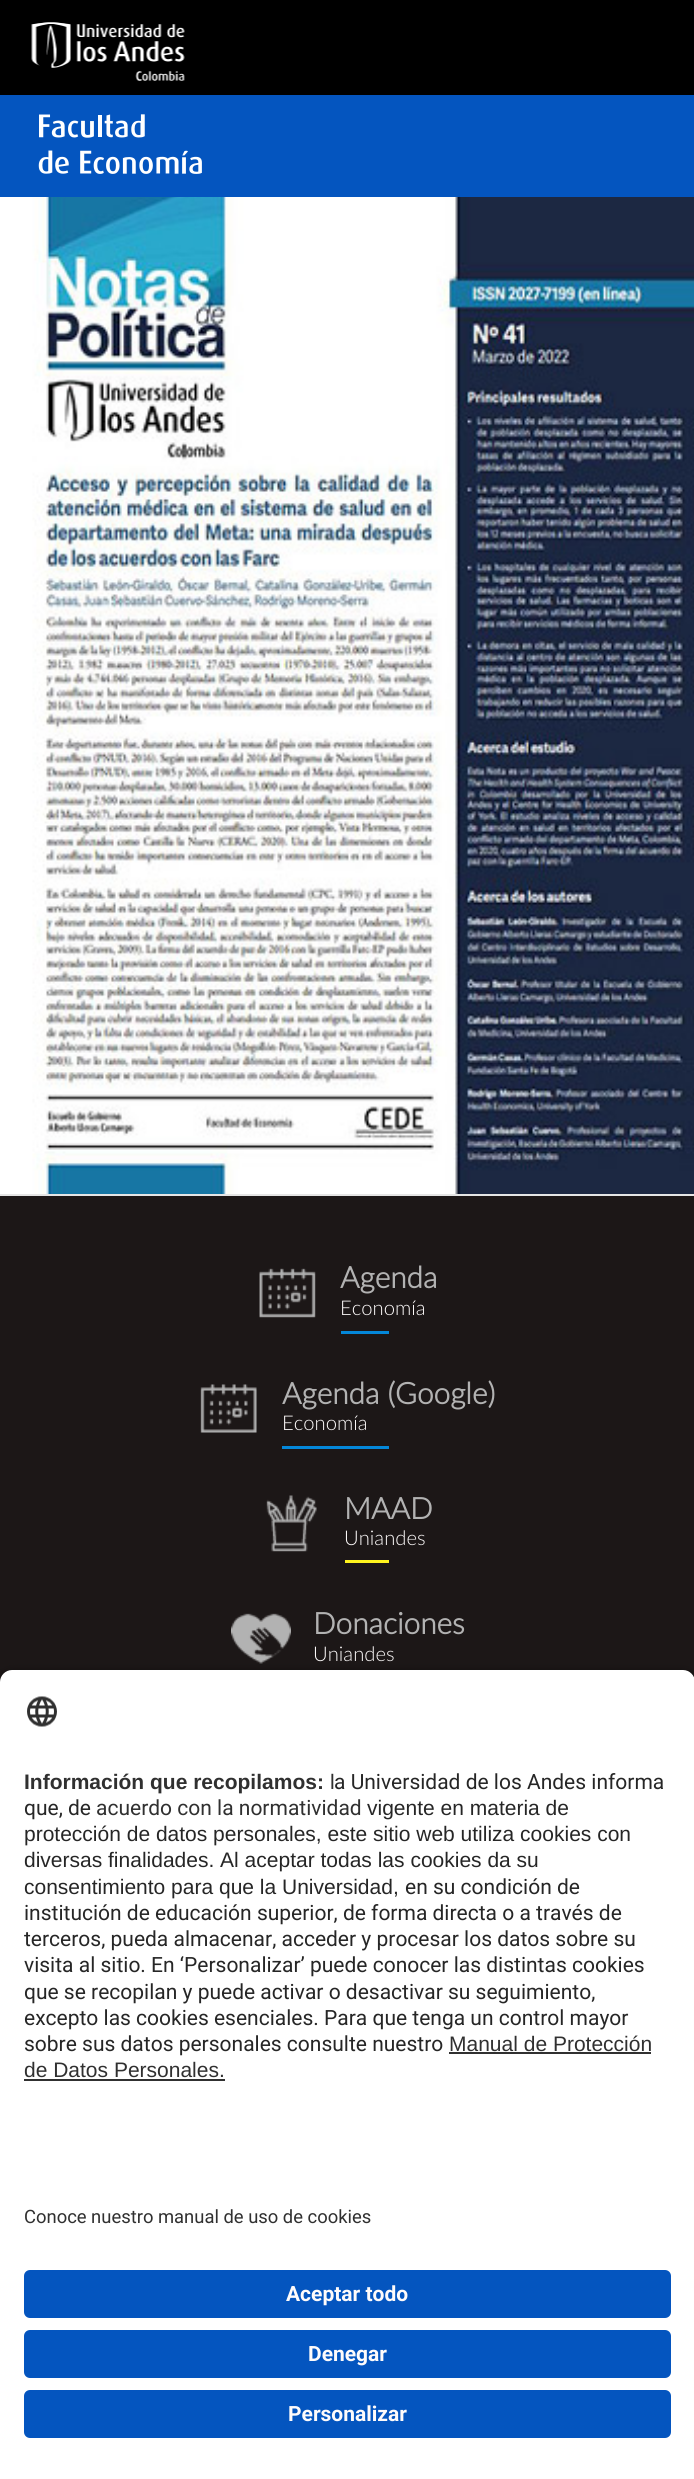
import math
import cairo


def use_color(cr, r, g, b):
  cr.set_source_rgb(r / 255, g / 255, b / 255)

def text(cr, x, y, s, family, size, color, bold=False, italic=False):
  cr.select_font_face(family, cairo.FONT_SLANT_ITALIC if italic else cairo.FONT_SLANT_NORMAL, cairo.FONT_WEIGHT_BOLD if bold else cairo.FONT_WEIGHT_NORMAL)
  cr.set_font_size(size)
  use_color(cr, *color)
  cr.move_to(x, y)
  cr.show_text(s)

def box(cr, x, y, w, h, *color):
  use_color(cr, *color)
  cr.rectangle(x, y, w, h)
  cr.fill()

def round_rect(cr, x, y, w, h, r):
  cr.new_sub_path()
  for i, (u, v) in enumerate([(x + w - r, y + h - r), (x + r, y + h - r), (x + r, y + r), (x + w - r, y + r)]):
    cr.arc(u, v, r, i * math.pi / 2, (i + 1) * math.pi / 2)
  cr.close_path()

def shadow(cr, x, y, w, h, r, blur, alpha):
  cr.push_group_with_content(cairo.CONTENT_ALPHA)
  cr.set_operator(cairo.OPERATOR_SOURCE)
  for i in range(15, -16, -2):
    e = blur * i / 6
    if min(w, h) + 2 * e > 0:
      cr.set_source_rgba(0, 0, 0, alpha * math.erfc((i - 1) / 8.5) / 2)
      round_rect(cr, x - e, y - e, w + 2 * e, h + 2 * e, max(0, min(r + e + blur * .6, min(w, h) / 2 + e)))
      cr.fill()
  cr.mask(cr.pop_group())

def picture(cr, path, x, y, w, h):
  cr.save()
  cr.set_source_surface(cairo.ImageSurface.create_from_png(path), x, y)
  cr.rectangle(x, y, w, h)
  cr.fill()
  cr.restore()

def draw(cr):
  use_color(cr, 255, 255, 255)
  cr.paint()
  box(cr, 0, 95, 694, 102, 4, 85, 191)
  box(cr, 0, 0, 694, 95, 0, 0, 0)
  picture(cr, "img_01.png", 31, 22, 154, 59)
  picture(cr, "img_02.png", 38, 114, 164, 60)
  picture(cr, "img_03.png", 0, 197, 694, 997)
  box(cr, 0, 1194, 694, 2, 229, 229, 229)
  box(cr, 0, 1196, 694, 486, 28, 23, 23)
  picture(cr, "img_04.png", 259, 1268, 57, 50)
  box(cr, 341, 1331, 48, 3, 4, 135, 217)
  picture(cr, "img_05.png", 200, 1384, 57, 49)
  box(cr, 282, 1446, 107, 3, 4, 135, 217)
  picture(cr, "img_06.png", 266, 1495, 51, 57)
  box(cr, 345, 1560, 44, 3, 255, 244, 30)
  picture(cr, "img_07.png", 231, 1613, 60, 51)
  use_color(cr, 0, 0, 0)
  shadow(cr, 0, 1674, 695, 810, 12, 5, 0.8)
  use_color(cr, 255, 255, 255)
  cr.new_path()
  cr.move_to(12, 1670)
  cr.line_to(683, 1670)
  cr.curve_to(689.5, 1670, 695, 1675.5, 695, 1682)
  cr.line_to(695, 2183)
  cr.line_to(0, 2183)
  cr.line_to(0, 1682)
  cr.curve_to(0, 1675.5, 5.5, 1670, 12, 1670)
  cr.close_path()
  cr.fill()
  picture(cr, "img_08.png", 27, 1696, 30, 31)
  box(cr, 449, 2052, 202, 2, 48, 48, 48)
  box(cr, 24, 2079, 201, 2, 48, 48, 48)
  box(cr, 0, 2183, 694, 296, 255, 255, 255)
  use_color(cr, 4, 85, 191)
  round_rect(cr, 24, 2270, 647, 48, 6)
  cr.fill()
  round_rect(cr, 24, 2330, 647, 48, 6)
  cr.fill()
  round_rect(cr, 24, 2390, 647, 48, 6)
  cr.fill()
  text(cr, 340, 1288, "Agenda", "Lato", 29.75, (178, 178, 178), bold=True)
  text(cr, 340, 1315, "Economía", "Lato Light", 20.25, (254, 251, 251))
  text(cr, 282, 1404, "Agenda (Google)", "Lato", 29.75, (178, 178, 178), bold=True)
  text(cr, 282, 1430, "Economía", "Lato Light", 20.25, (254, 251, 251))
  text(cr, 344, 1519, "MAAD", "Lato", 29.75, (178, 178, 178), bold=True)
  text(cr, 344, 1545, "Uniandes", "Lato Light", 20.25, (254, 251, 251))
  text(cr, 313, 1634, "Donaciones", "Lato", 29.75, (178, 178, 178), bold=True)
  text(cr, 313, 1661, "Uniandes", "Lato Light", 20.25, (254, 251, 251))
  text(cr, 24, 1789, "Información que recopilamos:", "Liberation Sans", 21, (48, 48, 48), bold=True)
  text(cr, 330, 1789, "l", "Liberation Sans", 21, (48, 48, 48))
  text(cr, 334, 1789, "a Universidad de los Andes informa", "Roboto", 21, (38, 38, 38))
  text(cr, 24, 1815, "que, de", "Roboto", 21, (38, 38, 38))
  text(cr, 96, 1815, "acuerdo con la normatividad", "Roboto", 21, (48, 48, 48))
  text(cr, 367, 1815, "vigente en materia de", "Liberation Sans", 21, (38, 38, 38))
  text(cr, 24, 1841, "protección de datos personales, este sitio web utiliza cookies con", "Liberation Sans", 21, (38, 38, 38))
  text(cr, 24, 1867, "diversas finalidades. Al aceptar todas las cookies da su", "Liberation Sans", 21, (38, 38, 38))
  text(cr, 24, 1894, "consentimiento para que la Universidad,", "Liberation Sans", 21, (38, 38, 38))
  text(cr, 405, 1894, "en su condición de", "Roboto", 21, (38, 38, 38))
  text(cr, 24, 1920, "institución de educación superior, de forma directa o a través de", "Roboto", 21, (38, 38, 38))
  text(cr, 24, 1946, "terceros, pueda almacenar, acceder y procesar los datos sobre su", "Roboto", 21, (38, 38, 38))
  text(cr, 24, 1972, "visita al sitio. En ‘Personalizar’ puede conocer las distintas cookies", "Roboto", 21, (38, 38, 38))
  text(cr, 24, 1999, "que se recopilan y puede activar o desactivar su seguimiento,", "Roboto", 21, (38, 38, 38))
  text(cr, 24, 2025, "excepto las cookies esenciales. Para que tenga un control mayor", "Roboto", 21, (38, 38, 38))
  text(cr, 24, 2051, "sobre sus datos personales consulte nuestro", "Roboto", 21, (38, 38, 38))
  text(cr, 449, 2051, "Manual de Protección", "Liberation Sans", 21, (48, 48, 48))
  text(cr, 24, 2077, "de Datos Personales.", "Liberation Sans", 21, (48, 48, 48))
  text(cr, 24, 2223, "Conoce nuestro manual de uso de cookies", "Roboto", 18.4, (48, 48, 48))
  text(cr, 286, 2301, "Aceptar todo", "Roboto", 21, (254, 251, 251), bold=True)
  text(cr, 308, 2361, "Denegar", "Roboto", 21, (254, 251, 251), bold=True)
  text(cr, 288, 2421, "Personalizar", "Roboto", 21, (254, 251, 251), bold=True)


surface = cairo.ImageSurface(cairo.FORMAT_RGB24, 694, 2479)
cr = cairo.Context(surface)
options = cairo.FontOptions()
options.set_hint_metrics(cairo.HINT_METRICS_OFF)
options.set_hint_style(cairo.HINT_STYLE_NONE)
cr.set_font_options(options)
cr.set_miter_limit(4)
draw(cr)
surface.write_to_png("out.png")
